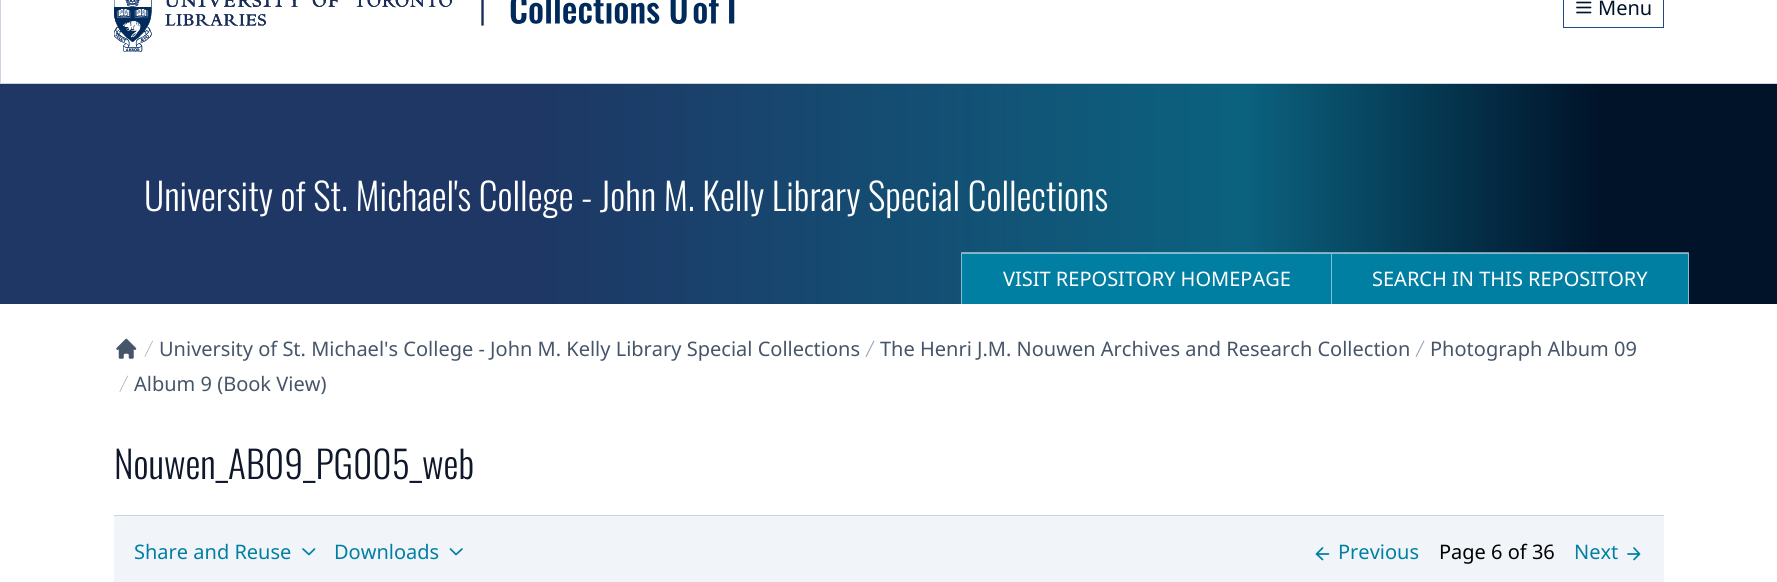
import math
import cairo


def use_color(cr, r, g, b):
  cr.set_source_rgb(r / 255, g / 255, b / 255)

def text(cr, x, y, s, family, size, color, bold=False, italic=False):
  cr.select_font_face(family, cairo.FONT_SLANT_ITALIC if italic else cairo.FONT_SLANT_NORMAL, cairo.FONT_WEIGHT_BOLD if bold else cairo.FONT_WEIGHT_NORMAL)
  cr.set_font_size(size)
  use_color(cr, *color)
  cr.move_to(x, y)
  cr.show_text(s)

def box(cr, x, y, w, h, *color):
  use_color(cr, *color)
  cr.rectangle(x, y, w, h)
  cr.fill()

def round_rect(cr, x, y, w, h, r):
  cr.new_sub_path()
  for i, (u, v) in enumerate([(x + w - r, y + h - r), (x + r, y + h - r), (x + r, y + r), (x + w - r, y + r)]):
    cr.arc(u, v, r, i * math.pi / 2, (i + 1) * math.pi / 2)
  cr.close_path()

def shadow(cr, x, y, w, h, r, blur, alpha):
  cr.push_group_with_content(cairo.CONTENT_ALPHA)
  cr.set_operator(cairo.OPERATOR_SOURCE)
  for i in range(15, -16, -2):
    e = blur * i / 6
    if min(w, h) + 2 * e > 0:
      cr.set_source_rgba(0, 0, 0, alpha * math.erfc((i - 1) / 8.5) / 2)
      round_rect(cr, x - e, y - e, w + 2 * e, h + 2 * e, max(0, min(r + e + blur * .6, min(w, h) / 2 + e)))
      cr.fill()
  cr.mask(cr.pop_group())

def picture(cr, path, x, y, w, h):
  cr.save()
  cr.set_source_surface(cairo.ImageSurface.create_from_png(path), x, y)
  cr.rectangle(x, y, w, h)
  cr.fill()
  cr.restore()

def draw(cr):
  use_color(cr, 255, 255, 255)
  cr.paint()
  gradient = cairo.LinearGradient(0, 194, 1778, 194)
  gradient.add_color_stop_rgba(0.3, 0.118, 0.216, 0.396, 1)
  gradient.add_color_stop_rgba(0.7, 0.043, 0.384, 0.498, 1)
  gradient.add_color_stop_rgba(0.9, 0, 0.075, 0.161, 1)
  cr.set_source(gradient)
  cr.rectangle(0, 84, 1777, 220)
  cr.fill()
  use_color(cr, 0, 0, 0)
  shadow(cr, 0, -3, 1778, 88, 0, 1, 0.05)
  use_color(cr, 255, 255, 255)
  cr.rectangle(0.5, -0.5, 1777, 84)
  cr.fill_preserve()
  use_color(cr, 203, 213, 225)
  cr.set_line_width(1)
  cr.stroke()
  picture(cr, "img_01.png", 114, 0, 621, 52)
  cr.rectangle(1563.5, -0.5, 100, 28)
  use_color(cr, 33, 72, 135)
  cr.stroke()
  cr.new_path()
  cr.move_to(1577, 2.5)
  cr.line_to(1590.5, 2.5)
  cr.move_to(1577, 7.5)
  cr.line_to(1590.5, 7.5)
  cr.move_to(1577, 12.5)
  cr.line_to(1590.5, 12.5)
  use_color(cr, 0, 19, 41)
  cr.set_line_width(1.7)
  cr.set_line_cap(cairo.LINE_CAP_ROUND)
  cr.set_line_join(cairo.LINE_JOIN_ROUND)
  cr.stroke()
  box(cr, 961, 253, 728, 51, 0, 127, 163)
  cr.set_source_rgba(1, 1, 1, 0.5)
  cr.new_path()
  cr.move_to(961, 252)
  cr.line_to(1332, 252)
  cr.line_to(1331, 254)
  cr.line_to(962, 254)
  cr.close_path()
  cr.fill()
  cr.new_path()
  cr.move_to(1332, 252)
  cr.line_to(1332, 304)
  cr.line_to(1331, 304)
  cr.line_to(1331, 254)
  cr.close_path()
  cr.fill()
  cr.new_path()
  cr.move_to(961, 304)
  cr.line_to(961, 252)
  cr.line_to(962, 254)
  cr.line_to(962, 304)
  cr.close_path()
  cr.fill()
  cr.new_path()
  cr.move_to(1332, 252)
  cr.line_to(1689, 252)
  cr.line_to(1688, 254)
  cr.line_to(1332, 254)
  cr.close_path()
  cr.fill()
  cr.new_path()
  cr.move_to(1689, 252)
  cr.line_to(1689, 304)
  cr.line_to(1688, 304)
  cr.line_to(1688, 254)
  cr.close_path()
  cr.fill()
  picture(cr, "img_02.png", 116, 338, 21, 21)
  use_color(cr, 148, 163, 184)
  cr.new_path()
  cr.move_to(144.5, 356.5)
  cr.line_to(152.5, 340.5)
  cr.line_to(153, 341)
  cr.line_to(145, 357)
  cr.close_path()
  cr.fill()
  cr.new_path()
  cr.move_to(865.5, 356.5)
  cr.line_to(873.5, 340.5)
  cr.line_to(874.5, 341)
  cr.line_to(866.5, 357)
  cr.close_path()
  cr.fill()
  cr.new_path()
  cr.move_to(1415.5, 356.5)
  cr.line_to(1423.5, 340.5)
  cr.line_to(1424.5, 341)
  cr.line_to(1416.5, 357)
  cr.close_path()
  cr.fill()
  cr.new_path()
  cr.move_to(119.5, 391.5)
  cr.line_to(127.5, 375.5)
  cr.line_to(128, 376)
  cr.line_to(120, 392)
  cr.close_path()
  cr.fill()
  box(cr, 114, 516, 1550, 66, 241, 245, 249)
  box(cr, 114, 515, 1550, 1, 203, 213, 225)
  cr.new_path()
  cr.move_to(314.5, 549)
  cr.line_to(309, 554.5)
  cr.line_to(303, 549)
  use_color(cr, 0, 127, 163)
  cr.stroke()
  cr.new_path()
  cr.move_to(462, 549)
  cr.line_to(456, 554.5)
  cr.line_to(450.5, 549)
  cr.stroke()
  cr.new_path()
  cr.move_to(1328.5, 554)
  cr.line_to(1316.5, 554)
  cr.move_to(1322.5, 559.5)
  cr.line_to(1316.5, 554)
  cr.line_to(1322.5, 548)
  cr.stroke()
  cr.new_path()
  cr.move_to(1628, 554)
  cr.line_to(1639.5, 554)
  cr.move_to(1634, 548)
  cr.line_to(1639.5, 554)
  cr.line_to(1634, 559.5)
  cr.stroke()
  text(cr, 1598, 15, "Menu", "Noto Sans", 20, (0, 19, 41))
  text(cr, 144, 211, "University of St. Michael's College - John M. Kelly Library Special Collections", "Oswald Light", 37.5, (255, 255, 255))
  text(cr, 1003, 286, "VISIT REPOSITORY HOMEPAGE", "Noto Sans", 20, (255, 255, 255))
  text(cr, 1372, 286, "SEARCH IN THIS REPOSITORY", "Noto Sans", 20, (255, 255, 255))
  text(cr, 159, 356, "University of St. Michael's College - John M. Kelly Library Special Collections", "Noto Sans", 20, (71, 85, 105))
  text(cr, 880, 356, "The Henri J.M. Nouwen Archives and Research Collection", "Noto Sans", 20, (71, 85, 105))
  text(cr, 1430, 356, "Photograph Album 09", "Noto Sans", 20, (71, 85, 105))
  text(cr, 134, 391, "Album 9 (Book View)", "Noto Sans", 20, (71, 85, 105))
  text(cr, 114, 479, "Nouwen_AB09_PG005_web", "Oswald Light", 37.5, (15, 23, 42))
  text(cr, 134, 559, "Share and Reuse", "Noto Sans", 20, (0, 127, 163))
  text(cr, 334, 559, "Downloads", "Noto Sans", 20, (0, 127, 163))
  text(cr, 1338, 559, "Previous", "Noto Sans", 20, (0, 127, 163))
  text(cr, 1439, 559, "Page 6 of 36", "Noto Sans", 20, (0, 0, 0))
  text(cr, 1574, 559, "Next", "Noto Sans", 20, (0, 127, 163))


surface = cairo.ImageSurface(cairo.FORMAT_RGB24, 1777, 582)
cr = cairo.Context(surface)
options = cairo.FontOptions()
options.set_hint_metrics(cairo.HINT_METRICS_OFF)
options.set_hint_style(cairo.HINT_STYLE_NONE)
cr.set_font_options(options)
cr.set_miter_limit(4)
draw(cr)
surface.write_to_png("out.png")
